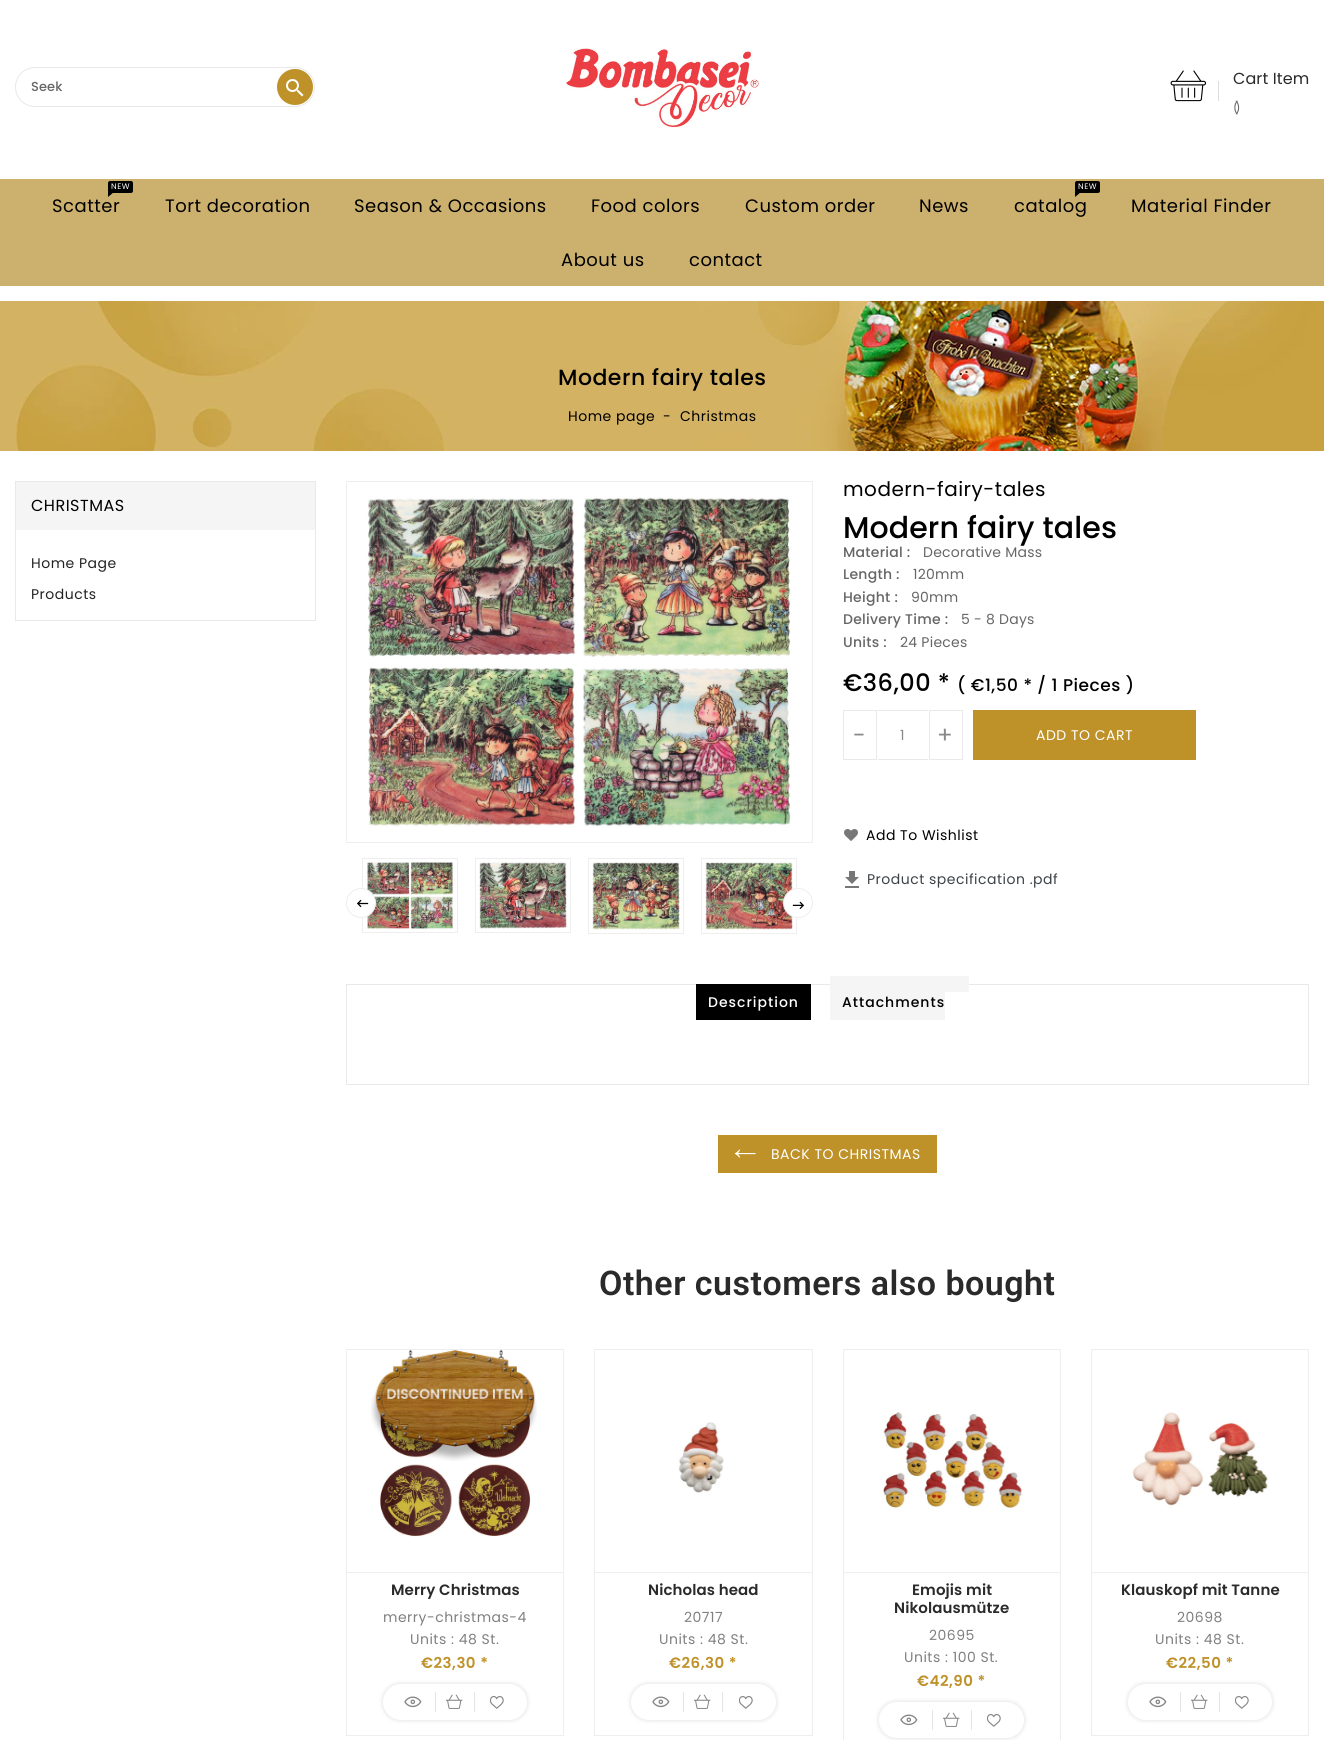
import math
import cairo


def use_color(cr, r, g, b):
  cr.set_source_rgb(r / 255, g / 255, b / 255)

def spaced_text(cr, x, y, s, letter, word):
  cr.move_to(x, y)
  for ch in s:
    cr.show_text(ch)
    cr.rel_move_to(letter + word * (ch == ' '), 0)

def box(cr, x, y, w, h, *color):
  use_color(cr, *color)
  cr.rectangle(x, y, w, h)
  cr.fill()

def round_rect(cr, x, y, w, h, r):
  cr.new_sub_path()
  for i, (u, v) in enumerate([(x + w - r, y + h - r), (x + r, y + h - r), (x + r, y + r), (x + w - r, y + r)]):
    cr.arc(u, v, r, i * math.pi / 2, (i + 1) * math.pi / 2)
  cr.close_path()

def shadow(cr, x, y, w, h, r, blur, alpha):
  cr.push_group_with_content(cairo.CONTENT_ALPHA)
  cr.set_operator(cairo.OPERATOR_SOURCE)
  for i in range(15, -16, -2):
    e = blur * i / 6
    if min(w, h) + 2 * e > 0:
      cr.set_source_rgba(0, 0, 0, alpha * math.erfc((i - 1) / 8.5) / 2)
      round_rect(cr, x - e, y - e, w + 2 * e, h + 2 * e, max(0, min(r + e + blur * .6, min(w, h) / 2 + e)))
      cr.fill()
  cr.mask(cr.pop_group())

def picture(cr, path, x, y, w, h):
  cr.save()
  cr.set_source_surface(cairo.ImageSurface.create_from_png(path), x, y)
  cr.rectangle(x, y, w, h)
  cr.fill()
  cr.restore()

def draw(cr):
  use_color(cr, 255, 255, 255)
  cr.paint()
  round_rect(cr, 15.5, 67.5, 299, 39, 19.5)
  use_color(cr, 232, 232, 232)
  cr.set_line_width(1)
  cr.stroke()
  use_color(cr, 190, 145, 41)
  cr.arc(295, 87, 18, 0, 2 * math.pi)
  cr.fill()
  picture(cr, "img_01.png", 286, 79, 18, 18)
  picture(cr, "img_02.png", 566, 48, 196, 80)
  picture(cr, "img_03.png", 1170, 70, 37, 32)
  box(cr, 1218, 81, 1, 20, 221, 221, 221)
  box(cr, 0, 179, 1324, 107, 204, 176, 110)
  use_color(cr, 0, 0, 0)
  round_rect(cr, 108, 181, 25, 12, 2)
  cr.fill()
  cr.new_path()
  cr.move_to(108, 192)
  cr.line_to(114, 192)
  cr.line_to(108, 197)
  cr.close_path()
  cr.fill()
  round_rect(cr, 1075, 181, 25, 12, 2)
  cr.fill()
  cr.new_path()
  cr.move_to(1075, 192)
  cr.line_to(1081, 192)
  cr.line_to(1075, 197)
  cr.close_path()
  cr.fill()
  picture(cr, "img_04.png", 0, 301, 1324, 150)
  cr.rectangle(15.5, 481.5, 300, 139)
  use_color(cr, 233, 233, 233)
  cr.stroke()
  box(cr, 16, 482, 299, 48, 245, 245, 245)
  cr.rectangle(346.5, 481.5, 466, 361)
  use_color(cr, 238, 238, 238)
  cr.stroke()
  picture(cr, "img_05.png", 367, 497, 424, 331)
  cr.rectangle(362.5, 858.5, 95, 74)
  cr.stroke()
  picture(cr, "img_06.png", 366, 862, 88, 68)
  cr.rectangle(475.5, 858.5, 95, 74)
  cr.stroke()
  picture(cr, "img_07.png", 479, 862, 88, 67)
  cr.rectangle(588.5, 858.5, 95, 75)
  cr.stroke()
  picture(cr, "img_08.png", 592, 862, 88, 70)
  cr.rectangle(701.5, 858.5, 95, 75)
  cr.stroke()
  picture(cr, "img_09.png", 705, 862, 88, 69)
  use_color(cr, 255, 255, 255)
  cr.arc(361, 903, 14.5, 0, 2 * math.pi)
  cr.fill_preserve()
  use_color(cr, 238, 238, 238)
  cr.stroke()
  picture(cr, "img_10.png", 357, 899, 12, 9)
  use_color(cr, 255, 255, 255)
  cr.arc(798, 903, 14.5, 0, 2 * math.pi)
  cr.fill_preserve()
  use_color(cr, 238, 238, 238)
  cr.stroke()
  picture(cr, "img_11.png", 792, 901, 12, 8)
  cr.rectangle(843.5, 710.5, 33, 49)
  use_color(cr, 233, 233, 233)
  cr.stroke()
  box(cr, 878, 710, 50, 1, 233, 233, 233)
  box(cr, 878, 759, 50, 1, 233, 233, 233)
  cr.rectangle(929.5, 710.5, 33, 49)
  cr.stroke()
  box(cr, 973, 710, 223, 50, 190, 145, 41)
  picture(cr, "img_12.png", 844, 829, 14, 12)
  picture(cr, "img_13.png", 845, 871, 14, 17)
  cr.rectangle(346.5, 984.5, 962, 100)
  use_color(cr, 233, 233, 233)
  cr.stroke()
  box(cr, 696, 984, 115, 36, 0, 0, 0)
  box(cr, 830, 992, 115, 28, 245, 245, 245)
  box(cr, 830, 976, 139, 16, 245, 245, 245)
  box(cr, 718, 1135, 219, 38, 190, 145, 41)
  picture(cr, "img_14.png", 734, 1149, 22, 9)
  cr.rectangle(346.5, 1349.5, 217, 386)
  use_color(cr, 238, 238, 238)
  cr.stroke()
  picture(cr, "img_16.png", 379, 1385, 152, 152)
  picture(cr, "img_15.png", 371, 1350, 166, 111)
  box(cr, 347, 1572, 216, 1, 238, 238, 238)
  use_color(cr, 0, 0, 0)
  shadow(cr, 382, 1683, 146, 38, 19, 2, 0.1)
  use_color(cr, 255, 255, 255)
  round_rect(cr, 383, 1684, 144, 36, 18)
  cr.fill()
  picture(cr, "img_17.png", 404, 1696, 18, 12)
  box(cr, 435, 1692, 1, 20, 229, 229, 229)
  picture(cr, "img_18.png", 446, 1694, 17, 15)
  box(cr, 474, 1692, 1, 20, 229, 229, 229)
  picture(cr, "img_19.png", 490, 1696, 14, 13)
  cr.rectangle(594.5, 1349.5, 218, 386)
  use_color(cr, 238, 238, 238)
  cr.stroke()
  picture(cr, "img_20.png", 678, 1422, 46, 71)
  box(cr, 595, 1572, 217, 1, 238, 238, 238)
  use_color(cr, 0, 0, 0)
  shadow(cr, 630, 1683, 147, 38, 19, 2, 0.1)
  use_color(cr, 255, 255, 255)
  round_rect(cr, 631, 1684, 145, 36, 18)
  cr.fill()
  picture(cr, "img_17.png", 652, 1696, 18, 12)
  box(cr, 683, 1692, 1, 20, 229, 229, 229)
  picture(cr, "img_18.png", 694, 1694, 17, 15)
  box(cr, 722, 1692, 1, 20, 229, 229, 229)
  picture(cr, "img_19.png", 739, 1696, 14, 13)
  cr.rectangle(843.5, 1349.5, 217, 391)
  use_color(cr, 238, 238, 238)
  cr.stroke()
  picture(cr, "img_21.png", 883, 1412, 140, 96)
  box(cr, 844, 1572, 216, 1, 238, 238, 238)
  use_color(cr, 0, 0, 0)
  shadow(cr, 878, 1701, 147, 38, 19, 2, 0.1)
  use_color(cr, 255, 255, 255)
  round_rect(cr, 879, 1702, 145, 36, 18)
  cr.fill()
  picture(cr, "img_17.png", 900, 1714, 18, 12)
  box(cr, 932, 1710, 1, 20, 229, 229, 229)
  picture(cr, "img_18.png", 943, 1712, 17, 15)
  box(cr, 971, 1710, 1, 20, 229, 229, 229)
  picture(cr, "img_19.png", 987, 1714, 14, 13)
  cr.rectangle(1091.5, 1349.5, 217, 386)
  use_color(cr, 238, 238, 238)
  cr.stroke()
  picture(cr, "img_22.png", 1132, 1412, 136, 94)
  box(cr, 1092, 1572, 216, 1, 238, 238, 238)
  use_color(cr, 0, 0, 0)
  shadow(cr, 1127, 1683, 146, 38, 19, 2, 0.1)
  use_color(cr, 255, 255, 255)
  round_rect(cr, 1128, 1684, 144, 36, 18)
  cr.fill()
  picture(cr, "img_17.png", 1149, 1696, 18, 12)
  box(cr, 1180, 1692, 1, 20, 229, 229, 229)
  picture(cr, "img_18.png", 1191, 1694, 17, 15)
  box(cr, 1219, 1692, 1, 20, 229, 229, 229)
  picture(cr, "img_19.png", 1235, 1696, 14, 13)
  cr.select_font_face("Poppins Medium")
  cr.set_font_size(13)
  use_color(cr, 102, 102, 102)
  spaced_text(cr, 31, 91, "Seek", 0.1, 0)
  cr.select_font_face("Poppins")
  cr.set_font_size(16)
  use_color(cr, 42, 42, 42)
  spaced_text(cr, 1233, 84, "Cart Item", 0.1, 0)
  cr.set_font_size(12)
  use_color(cr, 102, 102, 102)
  spaced_text(cr, 1233, 112, "(", 0.1, 0)
  spaced_text(cr, 1235, 112, ")", 0.1, 0)
  cr.set_font_size(8)
  use_color(cr, 255, 255, 255)
  spaced_text(cr, 111, 189, "NEW", 0.5, 0)
  cr.set_font_size(18)
  use_color(cr, 0, 0, 0)
  spaced_text(cr, 52, 212, "Scatter", 0.5, 0)
  spaced_text(cr, 165, 212, "Tort decoration", 0.5, 0)
  spaced_text(cr, 354, 212, "Season & Occasions", 0.5, 0)
  spaced_text(cr, 591, 212, "Food colors", 0.5, 0)
  spaced_text(cr, 745, 212, "Custom order", 0.5, 0)
  spaced_text(cr, 919, 212, "News", 0.5, 0)
  cr.set_font_size(8)
  use_color(cr, 255, 255, 255)
  spaced_text(cr, 1078, 189, "NEW", 0.5, 0)
  cr.set_font_size(18)
  use_color(cr, 0, 0, 0)
  spaced_text(cr, 1014, 212, "catalog", 0.5, 0)
  spaced_text(cr, 1131, 212, "Material Finder", 0.5, 0)
  spaced_text(cr, 561, 266, "About us", 0.5, 0)
  spaced_text(cr, 689, 266, "contact", 0.5, 0)
  cr.select_font_face("Poppins Medium")
  cr.set_font_size(22)
  spaced_text(cr, 558, 385, "Modern fairy tales", 0.5, 0)
  cr.select_font_face("Poppins")
  cr.set_font_size(14)
  spaced_text(cr, 568, 421, "Home page", 0.5, 0)
  spaced_text(cr, 663, 421, "-", 0.5, 0)
  spaced_text(cr, 680, 421, "Christmas", 0.5, 0)
  cr.set_font_size(16)
  spaced_text(cr, 31, 511, "CHRISTMAS", 0.5, 0)
  cr.set_font_size(14)
  use_color(cr, 35, 35, 35)
  spaced_text(cr, 31, 568, "Home Page", 0.5, 0)
  spaced_text(cr, 31, 599, "Products", 0.5, 0)
  cr.save()
  cr.rectangle(0, 481, 1324, 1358)
  cr.clip()
  cr.set_font_size(20)
  use_color(cr, 0, 0, 0)
  spaced_text(cr, 843, 496, "modern-fairy-tales", 0.5, 0)
  cr.restore()
  cr.select_font_face("Poppins Medium")
  cr.set_font_size(30)
  use_color(cr, 0, 0, 0)
  spaced_text(cr, 843, 538, "Modern fairy tales", 0.1, 0)
  cr.set_font_size(14)
  use_color(cr, 102, 102, 102)
  spaced_text(cr, 843, 557, "Material :", 0.25, 0)
  cr.select_font_face("Poppins")
  spaced_text(cr, 923, 557, "Decorative Mass", 0.25, 0)
  cr.select_font_face("Poppins Medium")
  spaced_text(cr, 843, 579, "Length :", 0.25, 0)
  cr.select_font_face("Poppins")
  spaced_text(cr, 913, 579, "120mm", 0.25, 0)
  cr.select_font_face("Poppins Medium")
  spaced_text(cr, 843, 602, "Height :", 0.25, 0)
  cr.select_font_face("Poppins")
  spaced_text(cr, 911, 602, "90mm", 0.25, 0)
  cr.select_font_face("Poppins Medium")
  spaced_text(cr, 843, 624, "Delivery Time :", 0.25, 0)
  cr.select_font_face("Poppins")
  spaced_text(cr, 961, 624, "5 - 8 Days", 0.25, 0)
  cr.select_font_face("Poppins Medium")
  spaced_text(cr, 843, 647, "Units :", 0.25, 0)
  cr.select_font_face("Poppins")
  spaced_text(cr, 900, 647, "24 Pieces", 0.25, 0)
  cr.select_font_face("Poppins Medium")
  cr.set_font_size(24)
  use_color(cr, 0, 0, 0)
  spaced_text(cr, 843, 691, "€36,00 *", 0.5, 0)
  cr.set_font_size(17)
  spaced_text(cr, 957, 691, "( €1,50 * / 1 Pieces )", 0.5, 0)
  cr.select_font_face("Poppins")
  cr.set_font_size(23)
  use_color(cr, 136, 136, 136)
  spaced_text(cr, 853, 743, "-", 0.5, 0)
  cr.set_font_size(14)
  spaced_text(cr, 900, 740, "1", 0.1, 0)
  cr.set_font_size(23)
  spaced_text(cr, 937, 743, "+", 0.5, 0)
  cr.set_font_size(14)
  use_color(cr, 255, 255, 255)
  spaced_text(cr, 1036, 740, "ADD TO CART", 0.5, 0)
  use_color(cr, 0, 0, 0)
  spaced_text(cr, 866, 840, "Add To Wishlist", 0.5, 0)
  use_color(cr, 61, 66, 70)
  spaced_text(cr, 867, 884, "Product specification .pdf", 0.5, 0)
  cr.select_font_face("Poppins Medium")
  use_color(cr, 255, 255, 255)
  spaced_text(cr, 708, 1007, "Description", 1, 0)
  use_color(cr, 0, 0, 0)
  spaced_text(cr, 842, 1007, "Attachments", 1, 0)
  cr.select_font_face("Poppins")
  use_color(cr, 255, 255, 255)
  spaced_text(cr, 771, 1159, "BACK TO CHRISTMAS", 0.5, 0)
  cr.select_font_face("Roboto SemiBold")
  cr.set_font_size(34)
  use_color(cr, 42, 42, 42)
  spaced_text(cr, 599, 1295, "Other customers also bought", 0.5, 0)
  cr.select_font_face("Poppins SemiBold")
  cr.set_font_size(15)
  spaced_text(cr, 391, 1595, "Merry Christmas", 0.1, 0)
  cr.select_font_face("Poppins")
  cr.set_font_size(14)
  use_color(cr, 128, 128, 128)
  spaced_text(cr, 383, 1622, "merry-christmas-4", 0.5, 0)
  spaced_text(cr, 410, 1644, "Units : 48 St.", 0.5, 0)
  cr.select_font_face("Poppins SemiBold")
  cr.set_font_size(15)
  use_color(cr, 190, 145, 41)
  spaced_text(cr, 421, 1668, "€23,30 *", 0.5, 0)
  use_color(cr, 42, 42, 42)
  spaced_text(cr, 648, 1595, "Nicholas head", 0.1, 0)
  cr.select_font_face("Poppins")
  cr.set_font_size(14)
  use_color(cr, 128, 128, 128)
  spaced_text(cr, 684, 1622, "20717", 0.5, 0)
  spaced_text(cr, 659, 1644, "Units : 48 St.", 0.5, 0)
  cr.select_font_face("Poppins SemiBold")
  cr.set_font_size(15)
  use_color(cr, 190, 145, 41)
  spaced_text(cr, 669, 1668, "€26,30 *", 0.5, 0)
  use_color(cr, 42, 42, 42)
  spaced_text(cr, 912, 1595, "Emojis mit", 0.1, 0)
  spaced_text(cr, 894, 1613, "Nikolausmütze", 0.1, 0)
  cr.select_font_face("Poppins")
  cr.set_font_size(14)
  use_color(cr, 128, 128, 128)
  spaced_text(cr, 929, 1640, "20695", 0.5, 0)
  spaced_text(cr, 904, 1662, "Units : 100 St.", 0.5, 0)
  cr.select_font_face("Poppins SemiBold")
  cr.set_font_size(15)
  use_color(cr, 190, 145, 41)
  spaced_text(cr, 917, 1686, "€42,90 *", 0.5, 0)
  use_color(cr, 42, 42, 42)
  spaced_text(cr, 1121, 1595, "Klauskopf mit Tanne", 0.1, 0)
  cr.select_font_face("Poppins")
  cr.set_font_size(14)
  use_color(cr, 128, 128, 128)
  spaced_text(cr, 1177, 1622, "20698", 0.5, 0)
  spaced_text(cr, 1155, 1644, "Units : 48 St.", 0.5, 0)
  cr.select_font_face("Poppins SemiBold")
  cr.set_font_size(15)
  use_color(cr, 190, 145, 41)
  spaced_text(cr, 1166, 1668, "€22,50 *", 0.5, 0)


surface = cairo.ImageSurface(cairo.FORMAT_RGB24, 1324, 1740)
cr = cairo.Context(surface)
options = cairo.FontOptions()
options.set_hint_metrics(cairo.HINT_METRICS_OFF)
options.set_hint_style(cairo.HINT_STYLE_NONE)
cr.set_font_options(options)
cr.set_miter_limit(4)
draw(cr)
surface.write_to_png("out.png")
